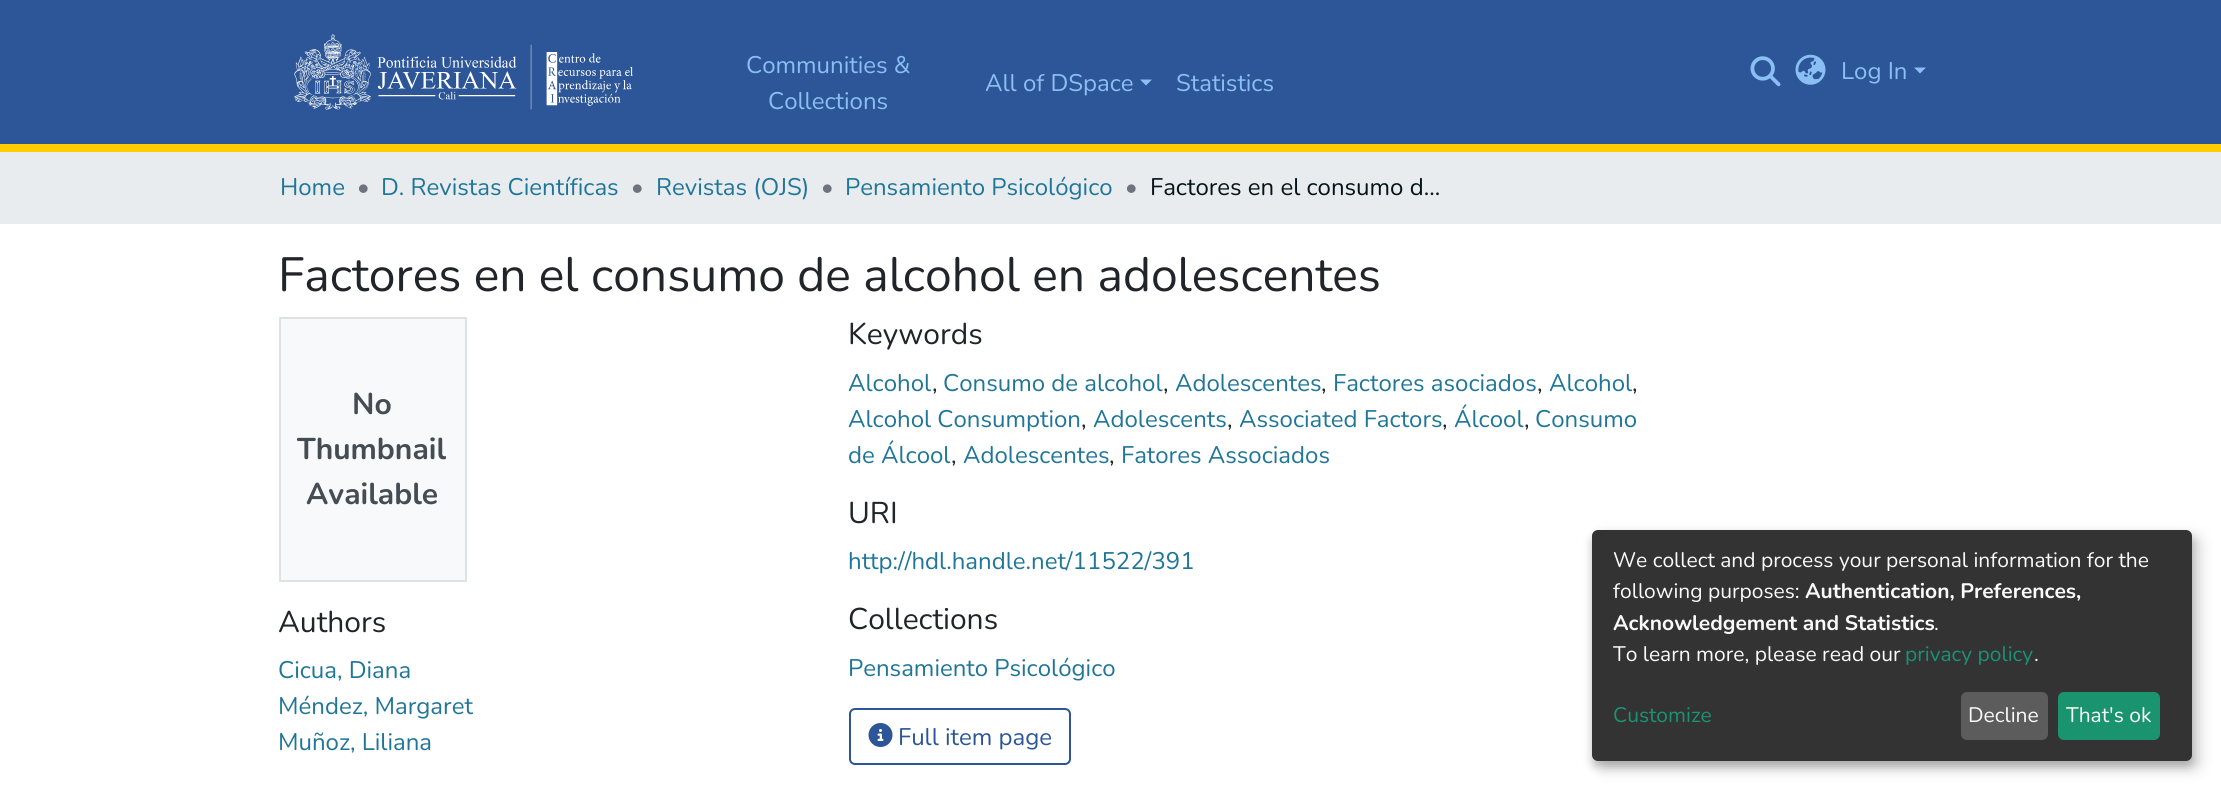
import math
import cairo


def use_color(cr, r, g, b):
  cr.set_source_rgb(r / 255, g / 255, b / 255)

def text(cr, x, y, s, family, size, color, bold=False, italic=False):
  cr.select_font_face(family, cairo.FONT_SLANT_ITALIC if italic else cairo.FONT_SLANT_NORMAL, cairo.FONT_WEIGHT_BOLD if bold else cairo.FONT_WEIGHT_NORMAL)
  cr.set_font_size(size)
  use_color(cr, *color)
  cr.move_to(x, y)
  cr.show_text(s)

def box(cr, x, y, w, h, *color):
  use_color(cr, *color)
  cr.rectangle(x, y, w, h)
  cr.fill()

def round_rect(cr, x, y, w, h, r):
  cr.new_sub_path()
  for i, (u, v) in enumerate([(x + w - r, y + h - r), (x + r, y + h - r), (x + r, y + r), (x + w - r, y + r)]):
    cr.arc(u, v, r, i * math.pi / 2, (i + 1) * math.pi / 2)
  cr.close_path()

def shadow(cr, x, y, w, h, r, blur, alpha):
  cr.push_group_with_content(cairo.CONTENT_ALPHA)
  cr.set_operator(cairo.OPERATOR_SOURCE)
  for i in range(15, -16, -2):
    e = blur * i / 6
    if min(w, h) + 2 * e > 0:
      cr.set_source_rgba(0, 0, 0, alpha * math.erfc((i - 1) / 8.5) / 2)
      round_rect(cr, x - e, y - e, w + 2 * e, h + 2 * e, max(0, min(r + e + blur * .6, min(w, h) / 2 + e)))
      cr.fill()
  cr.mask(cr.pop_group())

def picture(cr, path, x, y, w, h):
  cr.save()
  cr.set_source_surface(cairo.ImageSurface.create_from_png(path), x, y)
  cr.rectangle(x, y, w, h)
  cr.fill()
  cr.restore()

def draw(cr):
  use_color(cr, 255, 255, 255)
  cr.paint()
  box(cr, 0, 0, 2221, 144, 44, 86, 151)
  box(cr, 0, 144, 2221, 8, 255, 205, 0)
  picture(cr, "img_01.png", 294, 34, 339, 76)
  use_color(cr, 138, 191, 243)
  cr.new_path()
  cr.move_to(1140, 79.5)
  cr.line_to(1152, 79.5)
  cr.line_to(1146, 85.5)
  cr.close_path()
  cr.fill()
  picture(cr, "img_02.png", 1750, 56, 31, 31)
  picture(cr, "img_03.png", 1795, 54, 31, 31)
  cr.new_path()
  cr.move_to(1914, 67.5)
  cr.line_to(1926, 67.5)
  cr.line_to(1920, 73.5)
  cr.close_path()
  cr.fill()
  box(cr, 0, 152, 2221, 72, 233, 236, 239)
  use_color(cr, 248, 249, 250)
  cr.rectangle(280, 318, 186, 263)
  cr.fill_preserve()
  use_color(cr, 222, 226, 230)
  cr.stroke()
  round_rect(cr, 850, 709, 220, 55, 5)
  use_color(cr, 44, 86, 151)
  cr.stroke()
  picture(cr, "img_04.png", 868, 723, 25, 24)
  use_color(cr, 0, 0, 0)
  shadow(cr, 1599, 537, 600, 231, 6, 7.5, 0.19)
  shadow(cr, 1592, 536, 600, 231, 6, 4.5, 0.2)
  use_color(cr, 51, 51, 51)
  round_rect(cr, 1592, 530, 600, 231, 6)
  cr.fill()
  use_color(cr, 92, 92, 92)
  round_rect(cr, 1961, 692, 87, 48, 6)
  cr.fill()
  use_color(cr, 26, 147, 111)
  round_rect(cr, 2058, 692, 102, 48, 6)
  cr.fill()
  text(cr, 746, 73, "Communities &", "Nunito", 24, (138, 191, 243))
  text(cr, 768, 109, "Collections", "Nunito", 24, (138, 191, 243))
  text(cr, 985, 91, "All of DSpace", "Nunito", 24, (138, 191, 243))
  text(cr, 1176, 91, "Statistics", "Nunito", 24, (138, 191, 243))
  text(cr, 1841, 79, "Log In", "Nunito", 24, (138, 191, 243))
  text(cr, 280, 195, "Home", "Nunito", 24, (32, 118, 152))
  text(cr, 357, 195, "•", "Nunito", 24, (108, 117, 125))
  text(cr, 381, 195, "D. Revistas Científicas", "Nunito", 24, (32, 118, 152))
  text(cr, 631, 195, "•", "Nunito", 24, (108, 117, 125))
  text(cr, 656, 195, "Revistas (OJS)", "Nunito", 24, (32, 118, 152))
  text(cr, 821, 195, "•", "Nunito", 24, (108, 117, 125))
  text(cr, 845, 195, "Pensamiento Psicológico", "Nunito", 24, (32, 118, 152))
  text(cr, 1125, 195, "•", "Nunito", 24, (108, 117, 125))
  text(cr, 1150, 195, "Factores en el consumo d…", "Nunito", 24, (5, 20, 26))
  text(cr, 278, 291, "Factores en el consumo de alcohol en adolescentes", "Nunito", 48, (33, 37, 41))
  text(cr, 352, 414, "No", "Nunito", 30, (68, 76, 84), bold=True)
  text(cr, 297, 459, "Thumbnail", "Nunito", 30, (68, 76, 84), bold=True)
  text(cr, 306, 504, "Available", "Nunito", 30, (68, 76, 84), bold=True)
  text(cr, 278, 632, "Authors", "Nunito", 30, (33, 37, 41))
  text(cr, 278, 678, "Cicua, Diana", "Nunito", 24, (32, 118, 152))
  text(cr, 278, 714, "Méndez, Margaret", "Nunito", 24, (32, 118, 152))
  text(cr, 278, 750, "Muñoz, Liliana", "Nunito", 24, (32, 118, 152))
  text(cr, 848, 344, "Keywords", "Nunito", 30, (33, 37, 41))
  text(cr, 848, 391, "Alcohol", "Nunito", 24, (32, 118, 152))
  text(cr, 932, 391, ",", "Nunito", 24, (33, 37, 41))
  text(cr, 943, 391, "Consumo de alcohol", "Nunito", 24, (32, 118, 152))
  text(cr, 1163, 391, ",", "Nunito", 24, (33, 37, 41))
  text(cr, 1175, 391, "Adolescentes", "Nunito", 24, (32, 118, 152))
  text(cr, 1321, 391, ",", "Nunito", 24, (33, 37, 41))
  text(cr, 1333, 391, "Factores asociados", "Nunito", 24, (32, 118, 152))
  text(cr, 1537, 391, ",", "Nunito", 24, (33, 37, 41))
  text(cr, 1549, 391, "Alcohol", "Nunito", 24, (32, 118, 152))
  text(cr, 1632, 391, ",", "Nunito", 24, (33, 37, 41))
  text(cr, 848, 427, "Alcohol Consumption", "Nunito", 24, (32, 118, 152))
  text(cr, 1081, 427, ",", "Nunito", 24, (33, 37, 41))
  text(cr, 1093, 427, "Adolescents", "Nunito", 24, (32, 118, 152))
  text(cr, 1227, 427, ",", "Nunito", 24, (33, 37, 41))
  text(cr, 1239, 427, "Associated Factors", "Nunito", 24, (32, 118, 152))
  text(cr, 1442, 427, ",", "Nunito", 24, (33, 37, 41))
  text(cr, 1454, 427, "Álcool", "Nunito", 24, (32, 118, 152))
  text(cr, 1524, 427, ",", "Nunito", 24, (33, 37, 41))
  text(cr, 1535, 427, "Consumo", "Nunito", 24, (32, 118, 152))
  text(cr, 848, 463, "de Álcool", "Nunito", 24, (32, 118, 152))
  text(cr, 951, 463, ",", "Nunito", 24, (33, 37, 41))
  text(cr, 963, 463, "Adolescentes", "Nunito", 24, (32, 118, 152))
  text(cr, 1109, 463, ",", "Nunito", 24, (33, 37, 41))
  text(cr, 1121, 463, "Fatores Associados", "Nunito", 24, (32, 118, 152))
  text(cr, 848, 523, "URI", "Nunito", 30, (33, 37, 41))
  text(cr, 848, 569, "http://hdl.handle.net/11522/391", "Nunito", 24, (32, 118, 152))
  text(cr, 848, 629, "Collections", "Nunito", 30, (33, 37, 41))
  text(cr, 848, 676, "Pensamiento Psicológico", "Nunito", 24, (32, 118, 152))
  text(cr, 898, 745, "Full item page", "Nunito", 24, (44, 86, 151))
  text(cr, 1613, 567, "We collect and process your personal information for the", "Nunito", 21, (250, 250, 250))
  text(cr, 1613, 598, "following purposes:", "Nunito", 21, (250, 250, 250))
  text(cr, 1805, 598, "Authentication, Preferences,", "Nunito", 21, (250, 250, 250), bold=True)
  text(cr, 1613, 630, "Acknowledgement and Statistics", "Nunito", 21, (250, 250, 250), bold=True)
  text(cr, 1934, 630, ".", "Nunito", 21, (250, 250, 250))
  text(cr, 1613, 661, "To learn more, please read our", "Nunito", 21, (250, 250, 250))
  text(cr, 1905, 661, "privacy policy", "Nunito", 21, (26, 147, 111))
  text(cr, 2034, 661, ".", "Nunito", 21, (250, 250, 250))
  text(cr, 1613, 722, "Customize", "Nunito", 21, (26, 147, 111))
  text(cr, 1968, 722, "Decline", "Nunito", 21, (250, 250, 250))
  text(cr, 2066, 722, "That's ok", "Nunito", 21, (250, 250, 250))


surface = cairo.ImageSurface(cairo.FORMAT_RGB24, 2221, 790)
cr = cairo.Context(surface)
options = cairo.FontOptions()
options.set_hint_metrics(cairo.HINT_METRICS_OFF)
options.set_hint_style(cairo.HINT_STYLE_NONE)
cr.set_font_options(options)
cr.set_miter_limit(4)
draw(cr)
surface.write_to_png("out.png")
